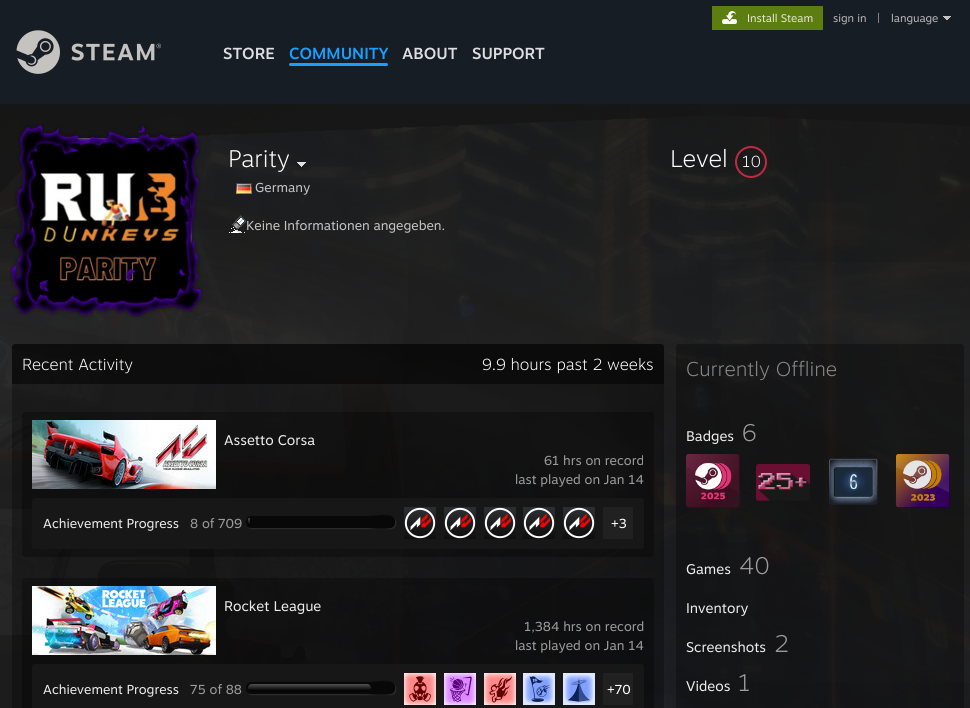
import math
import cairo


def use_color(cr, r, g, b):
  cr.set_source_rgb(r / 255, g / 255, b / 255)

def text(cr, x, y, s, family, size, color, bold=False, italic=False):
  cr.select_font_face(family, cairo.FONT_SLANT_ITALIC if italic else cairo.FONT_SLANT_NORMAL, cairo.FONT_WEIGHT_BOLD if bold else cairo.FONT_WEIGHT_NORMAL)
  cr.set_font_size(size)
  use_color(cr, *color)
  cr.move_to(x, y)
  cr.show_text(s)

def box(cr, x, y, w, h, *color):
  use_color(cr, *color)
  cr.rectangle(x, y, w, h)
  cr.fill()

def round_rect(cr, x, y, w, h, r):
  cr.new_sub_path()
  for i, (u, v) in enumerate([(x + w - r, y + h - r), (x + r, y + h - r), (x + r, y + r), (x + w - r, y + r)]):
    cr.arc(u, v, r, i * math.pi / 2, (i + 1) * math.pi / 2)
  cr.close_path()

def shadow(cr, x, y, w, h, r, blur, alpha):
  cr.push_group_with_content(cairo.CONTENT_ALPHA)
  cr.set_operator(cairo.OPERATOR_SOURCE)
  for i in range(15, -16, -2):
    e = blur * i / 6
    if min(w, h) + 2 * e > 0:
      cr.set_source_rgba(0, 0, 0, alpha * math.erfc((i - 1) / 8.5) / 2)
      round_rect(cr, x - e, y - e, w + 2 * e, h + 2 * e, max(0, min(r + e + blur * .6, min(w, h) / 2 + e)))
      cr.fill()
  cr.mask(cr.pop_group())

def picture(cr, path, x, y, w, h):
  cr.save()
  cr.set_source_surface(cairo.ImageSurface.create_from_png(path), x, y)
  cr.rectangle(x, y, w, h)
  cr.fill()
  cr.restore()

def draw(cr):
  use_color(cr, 23, 29, 37)
  cr.paint()
  box(cr, 712, 6, 111, 24, 92, 126, 16)
  picture(cr, "img_01.png", 722, 11, 15, 13)
  picture(cr, "img_02.png", 943, 16, 8, 4)
  picture(cr, "img_03.png", 16, 30, 145, 44)
  use_color(cr, 26, 159, 255)
  round_rect(cr, 289, 63, 99, 3, 1.5)
  cr.fill()
  picture(cr, "img_04.png", 0, 104, 970, 604)
  cr.set_source_rgba(0.094, 0.094, 0.094, 0.93)
  cr.rectangle(0, 104, 970, 224)
  cr.fill()
  gradient = cairo.RadialGradient(0, 0, 0, 0, 0, 1)
  gradient.set_matrix(cairo.Matrix(1 / 1372, 0, 0, 1 / 317, -1 * 0 / 1372, -1 * 328 / 317))
  gradient.add_color_stop_rgba(0, 0.2, 0.2, 0.2, 0.37)
  gradient.add_color_stop_rgba(0.44, 0.2, 0.2, 0.2, 0)
  cr.set_source(gradient)
  cr.rectangle(0, 229, 408, 99)
  cr.fill()
  gradient = cairo.RadialGradient(0, 0, 0, 0, 0, 1)
  gradient.set_matrix(cairo.Matrix(1 / 970, 0, 0, 1 / 224, -1 * 970 / 970, -1 * 328 / 224))
  gradient.add_color_stop_rgba(0, 0.192, 0.192, 0.192, 0.23)
  gradient.add_color_stop_rgba(0.52, 0.192, 0.192, 0.192, 0)
  cr.set_source(gradient)
  cr.rectangle(712, 262, 258, 66)
  cr.fill()
  gradient = cairo.LinearGradient(108, 138, 108, 306)
  gradient.add_color_stop_rgba(0.05, 0.416, 0.416, 0.416, 1)
  gradient.add_color_stop_rgba(0.95, 0.333, 0.333, 0.333, 1)
  cr.set_source(gradient)
  cr.rectangle(25, 138, 167, 168)
  cr.fill()
  picture(cr, "img_06.png", 27, 141, 163, 163)
  picture(cr, "img_05.png", 10, 124, 193, 194)
  picture(cr, "img_07.png", 297, 162, 9, 5)
  picture(cr, "img_08.png", 236, 183, 16, 11)
  picture(cr, "img_09.png", 229, 215, 17, 18)
  cr.arc(751, 162, 15, 0, 2 * math.pi)
  use_color(cr, 192, 41, 66)
  cr.stroke()
  cr.set_source_rgba(0.094, 0.094, 0.094, 0.93)
  cr.rectangle(0, 328, 970, 380)
  cr.fill()
  gradient = cairo.RadialGradient(0, 0, 0, 0, 0, 1)
  gradient.set_matrix(cairo.Matrix(1 / 1380, 0, 0, 1 / 1919, -1 * 0 / 1380, -1 * 328 / 1919))
  gradient.add_color_stop_rgba(0, 0.2, 0.2, 0.2, 0.37)
  gradient.add_color_stop_rgba(0.43, 0.2, 0.2, 0.2, 0)
  cr.set_source(gradient)
  cr.rectangle(0, 328, 403, 380)
  cr.fill()
  gradient = cairo.RadialGradient(0, 0, 0, 0, 0, 1)
  gradient.set_matrix(cairo.Matrix(1 / 976, 0, 0, 1 / 1357, -1 * 976 / 976, -1 * 328 / 1357))
  gradient.add_color_stop_rgba(0, 0.192, 0.192, 0.192, 0.23)
  gradient.add_color_stop_rgba(0.51, 0.192, 0.192, 0.192, 0)
  cr.set_source(gradient)
  cr.rectangle(721, 328, 249, 355)
  cr.fill()
  cr.set_source_rgba(0, 0, 0, 0.3)
  round_rect(cr, 12, 344, 652, 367, 3)
  cr.fill()
  cr.set_source_rgba(0, 0, 0, 0.5)
  cr.new_path()
  cr.move_to(15, 344)
  cr.line_to(661, 344)
  cr.curve_to(662.5, 344, 664, 345.5, 664, 347)
  cr.line_to(664, 384)
  cr.line_to(12, 384)
  cr.line_to(12, 347)
  cr.curve_to(12, 345.5, 13.5, 344, 15, 344)
  cr.close_path()
  cr.fill()
  cr.set_source_rgba(0, 0, 0, 0.3)
  round_rect(cr, 22, 412, 632, 145, 3)
  cr.fill()
  picture(cr, "img_10.png", 32, 420, 184, 69)
  cr.set_source_rgba(0.094, 0.094, 0.094, 0.93)
  round_rect(cr, 32, 498, 612, 51, 3)
  cr.fill()
  cr.save()
  cr.set_fill_rule(cairo.FILL_RULE_EVEN_ODD)
  cr.new_path()
  cr.move_to(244, 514)
  cr.line_to(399, 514)
  cr.line_to(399, 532)
  cr.line_to(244, 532)
  cr.close_path()
  cr.move_to(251, 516)
  cr.line_to(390, 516)
  cr.curve_to(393, 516, 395, 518, 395, 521)
  cr.line_to(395, 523)
  cr.curve_to(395, 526, 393, 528, 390, 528)
  cr.line_to(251, 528)
  cr.curve_to(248, 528, 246, 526, 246, 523)
  cr.line_to(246, 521)
  cr.curve_to(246, 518, 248, 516, 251, 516)
  cr.close_path()
  cr.clip()
  use_color(cr, 255, 255, 255)
  shadow(cr, 247, 517, 149, 12, 5, 0.5, 0.1)
  cr.restore()
  cr.set_source_rgba(0, 0, 0, 0.3)
  round_rect(cr, 246, 516, 149, 12, 5)
  cr.fill()
  cr.set_source_rgba(0, 0, 0, 0.5)
  cr.new_path()
  cr.move_to(251, 516)
  cr.line_to(367, 516)
  cr.curve_to(375, 516, 384, 513, 392, 516)
  cr.curve_to(393, 517, 395, 518, 395, 520)
  cr.curve_to(398, 534, 371, 528, 367, 528)
  cr.line_to(251, 528)
  cr.line_to(248, 527)
  cr.curve_to(244, 524, 246, 516, 251, 516)
  cr.close_path()
  cr.fill()
  gradient = cairo.LinearGradient(249, 518, 249, 526)
  gradient.add_color_stop_rgba(0, 0.322, 0.322, 0.322, 1)
  gradient.add_color_stop_rgba(0.8, 0.016, 0.016, 0.016, 1)
  cr.set_source(gradient)
  round_rect(cr, 248, 518, 2, 8, 1)
  cr.fill()
  picture(cr, "img_11.png", 404, 507, 32, 32)
  picture(cr, "img_11.png", 444, 507, 32, 32)
  picture(cr, "img_11.png", 484, 507, 32, 32)
  picture(cr, "img_11.png", 523, 507, 32, 32)
  picture(cr, "img_11.png", 563, 507, 32, 32)
  box(cr, 603, 507, 30, 32, 33, 33, 33)
  cr.set_source_rgba(0, 0, 0, 0.3)
  round_rect(cr, 22, 578, 632, 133, 3)
  cr.fill()
  picture(cr, "img_12.png", 32, 586, 184, 69)
  cr.set_source_rgba(0.094, 0.094, 0.094, 0.93)
  round_rect(cr, 32, 664, 612, 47, 3)
  cr.fill()
  cr.save()
  cr.set_fill_rule(cairo.FILL_RULE_EVEN_ODD)
  cr.new_path()
  cr.move_to(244, 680)
  cr.line_to(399, 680)
  cr.line_to(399, 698)
  cr.line_to(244, 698)
  cr.close_path()
  cr.move_to(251, 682)
  cr.line_to(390, 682)
  cr.curve_to(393, 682, 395, 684, 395, 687)
  cr.line_to(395, 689)
  cr.curve_to(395, 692, 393, 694, 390, 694)
  cr.line_to(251, 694)
  cr.curve_to(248, 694, 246, 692, 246, 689)
  cr.line_to(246, 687)
  cr.curve_to(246, 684, 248, 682, 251, 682)
  cr.close_path()
  cr.clip()
  use_color(cr, 255, 255, 255)
  shadow(cr, 247, 683, 149, 12, 5, 0.5, 0.1)
  cr.restore()
  cr.set_source_rgba(0, 0, 0, 0.3)
  round_rect(cr, 246, 682, 149, 12, 5)
  cr.fill()
  cr.set_source_rgba(0, 0, 0, 0.5)
  cr.new_path()
  cr.move_to(251, 682)
  cr.line_to(367, 682)
  cr.curve_to(375, 682, 384, 679, 392, 682)
  cr.curve_to(393, 683, 395, 684, 395, 686)
  cr.curve_to(398, 700, 371, 694, 367, 694)
  cr.line_to(251, 694)
  cr.line_to(248, 693)
  cr.curve_to(244, 690, 246, 682, 251, 682)
  cr.close_path()
  cr.fill()
  gradient = cairo.LinearGradient(310, 684, 310, 692)
  gradient.add_color_stop_rgba(0, 0.322, 0.322, 0.322, 1)
  gradient.add_color_stop_rgba(0.8, 0.016, 0.016, 0.016, 1)
  cr.set_source(gradient)
  round_rect(cr, 248, 684, 123, 8, 4)
  cr.fill()
  picture(cr, "img_13.png", 404, 673, 32, 32)
  picture(cr, "img_14.png", 444, 673, 32, 32)
  picture(cr, "img_15.png", 484, 673, 32, 32)
  picture(cr, "img_16.png", 523, 673, 32, 32)
  picture(cr, "img_17.png", 563, 673, 32, 32)
  box(cr, 603, 673, 30, 32, 33, 33, 33)
  cr.set_source_rgba(0, 0, 0, 0.3)
  round_rect(cr, 676, 344, 288, 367, 3)
  cr.fill()
  picture(cr, "img_18.png", 686, 454, 54, 54)
  picture(cr, "img_19.png", 756, 464, 54, 37)
  picture(cr, "img_20.png", 829, 458, 49, 47)
  picture(cr, "img_21.png", 896, 454, 54, 54)
  text(cr, 747, 22, "Install Steam", "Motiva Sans", 11, (229, 228, 220))
  text(cr, 833, 22, "sign in", "Motiva Sans", 11, (184, 182, 180))
  text(cr, 877, 22, "|", "Motiva Sans", 11, (184, 182, 180))
  text(cr, 891, 22, "language", "Motiva Sans", 11, (184, 182, 180))
  text(cr, 223, 59, "STORE", "Motiva Sans Medium", 16, (220, 222, 223))
  text(cr, 289, 59, "COMMUNITY", "Motiva Sans Medium", 16, (26, 159, 255))
  text(cr, 402, 59, "ABOUT", "Motiva Sans Medium", 16, (220, 222, 223))
  text(cr, 472, 59, "SUPPORT", "Motiva Sans Medium", 16, (220, 222, 223))
  text(cr, 228, 167, "Parity", "Motiva Sans Thin", 24, (255, 255, 255))
  text(cr, 255, 192, "Germany", "Motiva Sans", 13, (196, 196, 196))
  text(cr, 246, 230, "Keine Informationen angegeben.", "Motiva Sans", 13, (196, 196, 196))
  text(cr, 670, 167, "Level", "Motiva Sans Thin", 24, (255, 255, 255))
  text(cr, 742, 167, "10", "Motiva Sans Thin", 16, (255, 255, 255))
  text(cr, 22, 370, "Recent Activity", "Motiva Sans Thin", 16, (255, 255, 255))
  text(cr, 482, 370, "9.9 hours past 2 weeks", "Motiva Sans Thin", 16, (255, 255, 255))
  text(cr, 224, 445, "Assetto Corsa", "Motiva Sans", 14, (235, 235, 235))
  text(cr, 544, 465, "61 hrs on record", "Motiva Sans", 13, (155, 155, 155))
  text(cr, 515, 484, "last played on Jan 14", "Motiva Sans", 13, (155, 155, 155))
  text(cr, 43, 528, "Achievement Progress", "Motiva Sans", 13, (235, 235, 235))
  text(cr, 190, 528, "8 of 709", "Motiva Sans", 13, (155, 155, 155))
  text(cr, 611, 528, "+3", "Motiva Sans", 13, (255, 255, 255))
  text(cr, 224, 611, "Rocket League", "Motiva Sans", 14, (235, 235, 235))
  text(cr, 524, 631, "1,384 hrs on record", "Motiva Sans", 13, (155, 155, 155))
  text(cr, 515, 650, "last played on Jan 14", "Motiva Sans", 13, (155, 155, 155))
  text(cr, 43, 694, "Achievement Progress", "Motiva Sans", 13, (235, 235, 235))
  text(cr, 190, 694, "75 of 88", "Motiva Sans", 13, (155, 155, 155))
  text(cr, 607, 694, "+70", "Motiva Sans", 13, (255, 255, 255))
  text(cr, 686, 376, "Currently Offline", "Motiva Sans Thin", 20, (137, 137, 137))
  text(cr, 686, 441, "Badges", "Motiva Sans", 14, (235, 235, 235))
  text(cr, 742, 441, "6", "Motiva Sans Thin", 24, (155, 155, 155))
  text(cr, 686, 574, "Games", "Motiva Sans", 14, (235, 235, 235))
  text(cr, 739, 574, "40", "Motiva Sans Thin", 24, (155, 155, 155))
  text(cr, 686, 613, "Inventory", "Motiva Sans", 14, (235, 235, 235))
  text(cr, 686, 652, "Screenshots", "Motiva Sans", 14, (235, 235, 235))
  text(cr, 774, 652, "2", "Motiva Sans Thin", 24, (155, 155, 155))
  text(cr, 686, 691, "Videos", "Motiva Sans", 14, (235, 235, 235))
  text(cr, 738, 691, "1", "Motiva Sans Thin", 24, (155, 155, 155))


surface = cairo.ImageSurface(cairo.FORMAT_RGB24, 970, 708)
cr = cairo.Context(surface)
options = cairo.FontOptions()
options.set_hint_metrics(cairo.HINT_METRICS_OFF)
options.set_hint_style(cairo.HINT_STYLE_NONE)
cr.set_font_options(options)
cr.set_miter_limit(4)
draw(cr)
surface.write_to_png("out.png")
